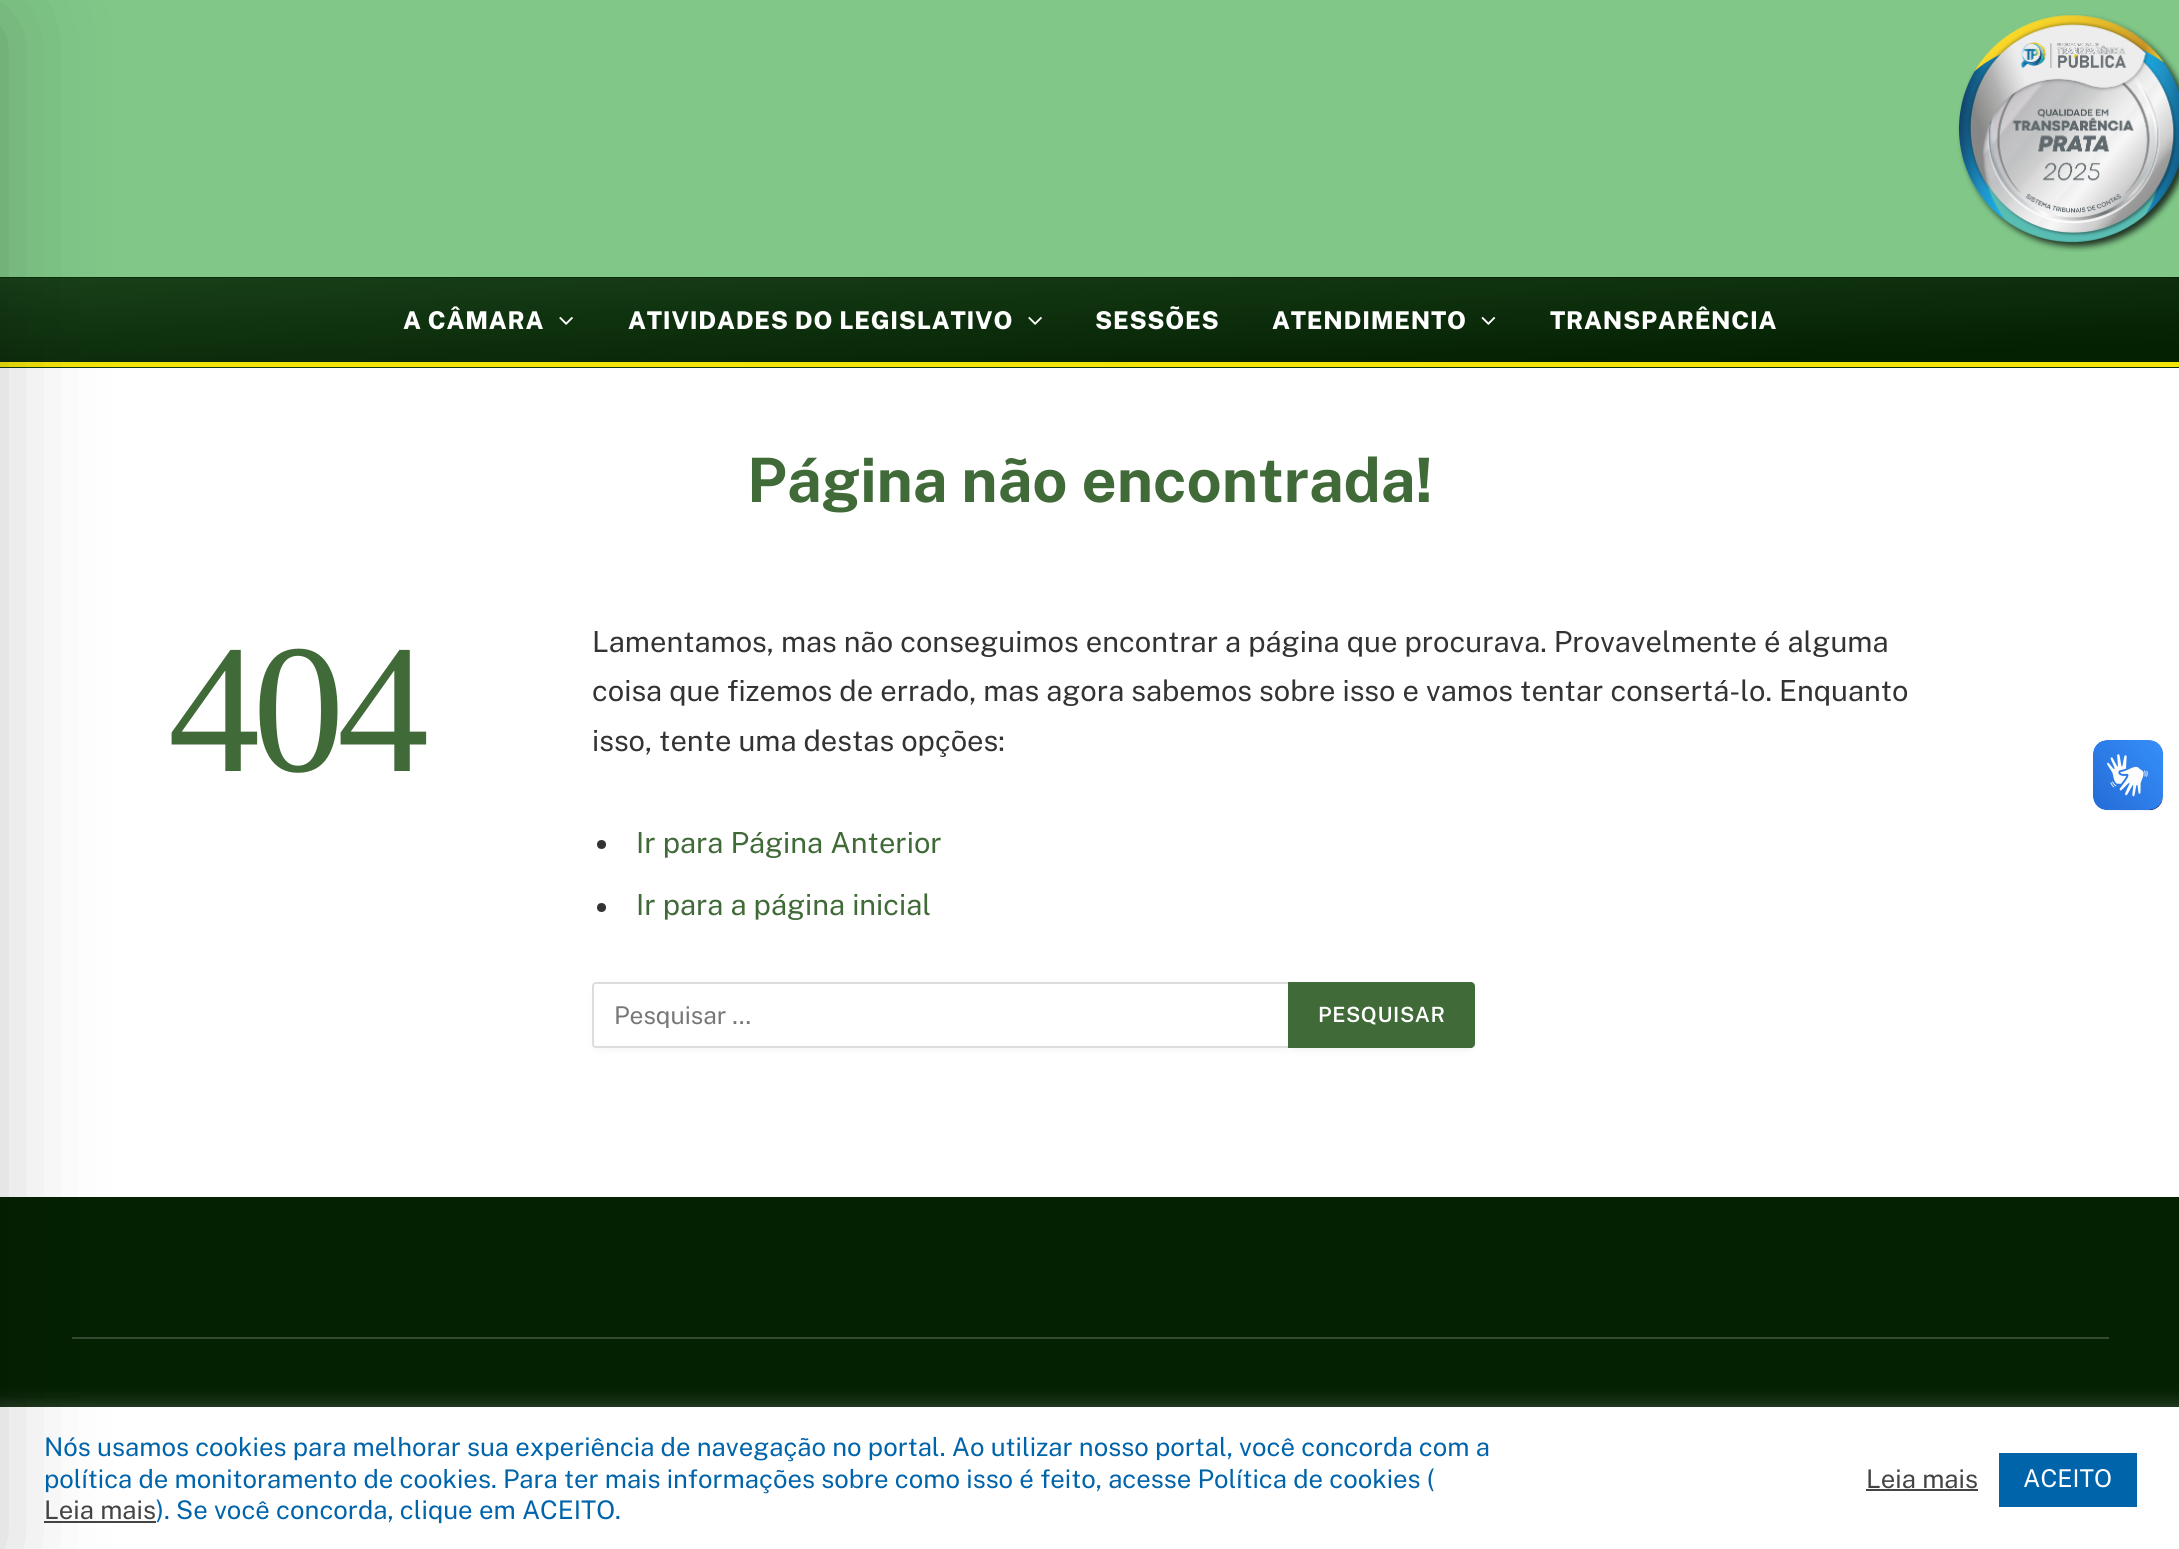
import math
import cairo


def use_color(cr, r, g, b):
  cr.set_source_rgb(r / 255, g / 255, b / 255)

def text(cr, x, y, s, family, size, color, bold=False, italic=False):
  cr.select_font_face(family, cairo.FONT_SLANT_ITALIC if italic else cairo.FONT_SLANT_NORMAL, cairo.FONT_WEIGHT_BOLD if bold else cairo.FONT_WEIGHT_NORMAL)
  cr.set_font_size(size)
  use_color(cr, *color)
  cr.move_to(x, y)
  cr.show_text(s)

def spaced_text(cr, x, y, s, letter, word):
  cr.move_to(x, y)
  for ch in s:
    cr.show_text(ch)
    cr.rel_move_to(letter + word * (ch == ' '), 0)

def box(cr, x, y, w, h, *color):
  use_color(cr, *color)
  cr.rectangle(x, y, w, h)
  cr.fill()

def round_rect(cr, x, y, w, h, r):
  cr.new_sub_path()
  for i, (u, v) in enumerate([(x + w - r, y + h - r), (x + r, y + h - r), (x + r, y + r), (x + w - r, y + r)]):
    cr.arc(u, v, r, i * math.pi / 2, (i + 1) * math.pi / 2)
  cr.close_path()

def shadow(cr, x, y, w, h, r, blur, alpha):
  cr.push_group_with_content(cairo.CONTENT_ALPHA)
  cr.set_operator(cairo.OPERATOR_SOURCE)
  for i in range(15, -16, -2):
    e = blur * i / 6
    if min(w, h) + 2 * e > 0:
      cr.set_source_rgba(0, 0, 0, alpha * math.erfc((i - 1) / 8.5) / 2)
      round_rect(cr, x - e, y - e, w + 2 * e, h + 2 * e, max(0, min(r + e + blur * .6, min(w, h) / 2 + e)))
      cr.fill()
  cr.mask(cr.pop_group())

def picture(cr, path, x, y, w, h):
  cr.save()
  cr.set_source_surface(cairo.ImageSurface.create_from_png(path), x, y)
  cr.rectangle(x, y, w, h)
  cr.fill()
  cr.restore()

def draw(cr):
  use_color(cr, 255, 255, 255)
  cr.paint()
  box(cr, 0, 0, 2179, 277, 128, 199, 136)
  gradient = cairo.LinearGradient(1093, 316, 1087, 156)
  gradient.add_color_stop_rgba(0.1, 0.016, 0.129, 0.008, 1)
  gradient.add_color_stop_rgba(1, 0.094, 0.247, 0.094, 1)
  cr.set_source(gradient)
  cr.rectangle(0, 277, 2179, 1)
  cr.fill()
  gradient = cairo.LinearGradient(1093, 400, 1087, 240)
  gradient.add_color_stop_rgba(0.1, 0.016, 0.129, 0.008, 1)
  gradient.add_color_stop_rgba(1, 0.094, 0.247, 0.094, 1)
  cr.set_source(gradient)
  cr.rectangle(0, 278, 2179, 84)
  cr.fill()
  gradient = cairo.LinearGradient(1093, 484, 1087, 324)
  gradient.add_color_stop_rgba(0.1, 0.016, 0.129, 0.008, 1)
  gradient.add_color_stop_rgba(1, 0.094, 0.247, 0.094, 1)
  cr.set_source(gradient)
  cr.rectangle(0, 367, 2179, 1)
  cr.fill()
  box(cr, 0, 362, 2179, 5, 242, 228, 9)
  box(cr, 0, 1197, 2179, 210, 4, 33, 2)
  box(cr, 72, 1337, 2037, 2, 52, 75, 50)
  use_color(cr, 172, 171, 171)
  shadow(cr, 0, 1405, 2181, 144, 0, 9, 0.3)
  box(cr, 0, 1407, 2179, 142, 255, 255, 255)
  box(cr, 44, 1521, 112, 2, 68, 68, 68)
  use_color(cr, 0, 0, 0)
  shadow(cr, -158, 18, 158, 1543, 0, 52.5, 0.2)
  picture(cr, "img_01.png", 1957, 14, 222, 238)
  picture(cr, "img_02.png", 559, 316, 14, 9)
  picture(cr, "img_03.png", 1028, 316, 14, 9)
  picture(cr, "img_04.png", 1481, 316, 15, 9)
  use_color(cr, 51, 51, 51)
  cr.arc(601.5, 844.5, 4.5, 0, 2 * math.pi)
  cr.fill()
  cr.arc(601.5, 907.5, 4.5, 0, 2 * math.pi)
  cr.fill()
  use_color(cr, 0, 0, 0)
  shadow(cr, 599, 992, 686, 53, 0, 6, 0.1)
  use_color(cr, 255, 255, 255)
  round_rect(cr, 593, 983, 698, 64, 3)
  cr.fill_preserve()
  use_color(cr, 221, 221, 221)
  cr.stroke()
  use_color(cr, 0, 0, 0)
  shadow(cr, 1295, 992, 173, 53, 0, 6, 0.16)
  use_color(cr, 64, 106, 56)
  cr.new_path()
  cr.move_to(1288, 982)
  cr.line_to(1471, 982)
  cr.curve_to(1473, 982, 1475, 984, 1475, 986)
  cr.line_to(1475, 1044)
  cr.curve_to(1475, 1046, 1473, 1048, 1471, 1048)
  cr.line_to(1288, 1048)
  cr.close_path()
  cr.fill()
  picture(cr, "img_05.png", 2093, 740, 70, 71)
  picture(cr, "img_06.png", 2093, 740, 70, 70)
  box(cr, 1866, 1489, 112, 2, 68, 68, 68)
  box(cr, 1999, 1453, 138, 54, 0, 100, 171)
  cr.select_font_face("Public Sans Thin")
  cr.set_font_size(24.5)
  use_color(cr, 255, 255, 255)
  spaced_text(cr, 403, 329, "A CÂMARA", 0.75, 0)
  spaced_text(cr, 628, 329, "ATIVIDADES DO LEGISLATIVO", 0.75, 0)
  spaced_text(cr, 1095, 329, "SESSÕES", 0.75, 0)
  spaced_text(cr, 1272, 329, "ATENDIMENTO", 0.75, 0)
  spaced_text(cr, 1550, 329, "TRANSPARÊNCIA", 0.75, 0)
  text(cr, 747, 502, "Página não encontrada!", "Public Sans", 61.25, (64, 106, 56), bold=True)
  cr.select_font_face("Liberation Serif")
  cr.set_font_size(184)
  spaced_text(cr, 168, 771, "404", -7.5, 0)
  text(cr, 592, 652, "Lamentamos, mas não conseguimos encontrar a página que procurava. Provavelmente é alguma", "Public Sans", 29.05, (51, 51, 51))
  text(cr, 592, 701, "coisa que fizemos de errado, mas agora sabemos sobre isso e vamos tentar consertá-lo. Enquanto", "Public Sans", 29.05, (51, 51, 51))
  text(cr, 592, 751, "isso, tente uma destas opções:", "Public Sans", 29.05, (51, 51, 51))
  text(cr, 636, 853, "Ir para Página Anterior", "Public Sans", 29.05, (64, 106, 56))
  text(cr, 636, 915, "Ir para a página inicial", "Public Sans", 29.05, (64, 106, 56))
  text(cr, 614, 1024, "Pesquisar …", "Public Sans", 24.5, (119, 119, 119))
  cr.select_font_face("Public Sans SemiBold")
  cr.set_font_size(21)
  use_color(cr, 255, 255, 255)
  spaced_text(cr, 1318, 1022, "PESQUISAR", 0.6, 0)
  text(cr, 44, 1456, "Nós usamos cookies para melhorar sua experiência de navegação no portal. Ao utilizar nosso portal, você concorda com a", "Public Sans", 25.67, (0, 100, 171))
  text(cr, 44, 1488, "política de monitoramento de cookies. Para ter mais informações sobre como isso é feito, acesse Política de cookies (", "Public Sans", 25.67, (0, 100, 171))
  text(cr, 44, 1519, "Leia mais", "Public Sans", 25.67, (68, 68, 68))
  text(cr, 156, 1519, "). Se você concorda, clique em ACEITO.", "Public Sans", 25.67, (0, 100, 171))
  text(cr, 1866, 1488, "Leia mais", "Public Sans", 25.67, (68, 68, 68))
  text(cr, 2023, 1487, "ACEITO", "Public Sans", 24.5, (255, 255, 255))


surface = cairo.ImageSurface(cairo.FORMAT_RGB24, 2179, 1549)
cr = cairo.Context(surface)
options = cairo.FontOptions()
options.set_hint_metrics(cairo.HINT_METRICS_OFF)
options.set_hint_style(cairo.HINT_STYLE_NONE)
cr.set_font_options(options)
cr.set_miter_limit(4)
draw(cr)
surface.write_to_png("out.png")
